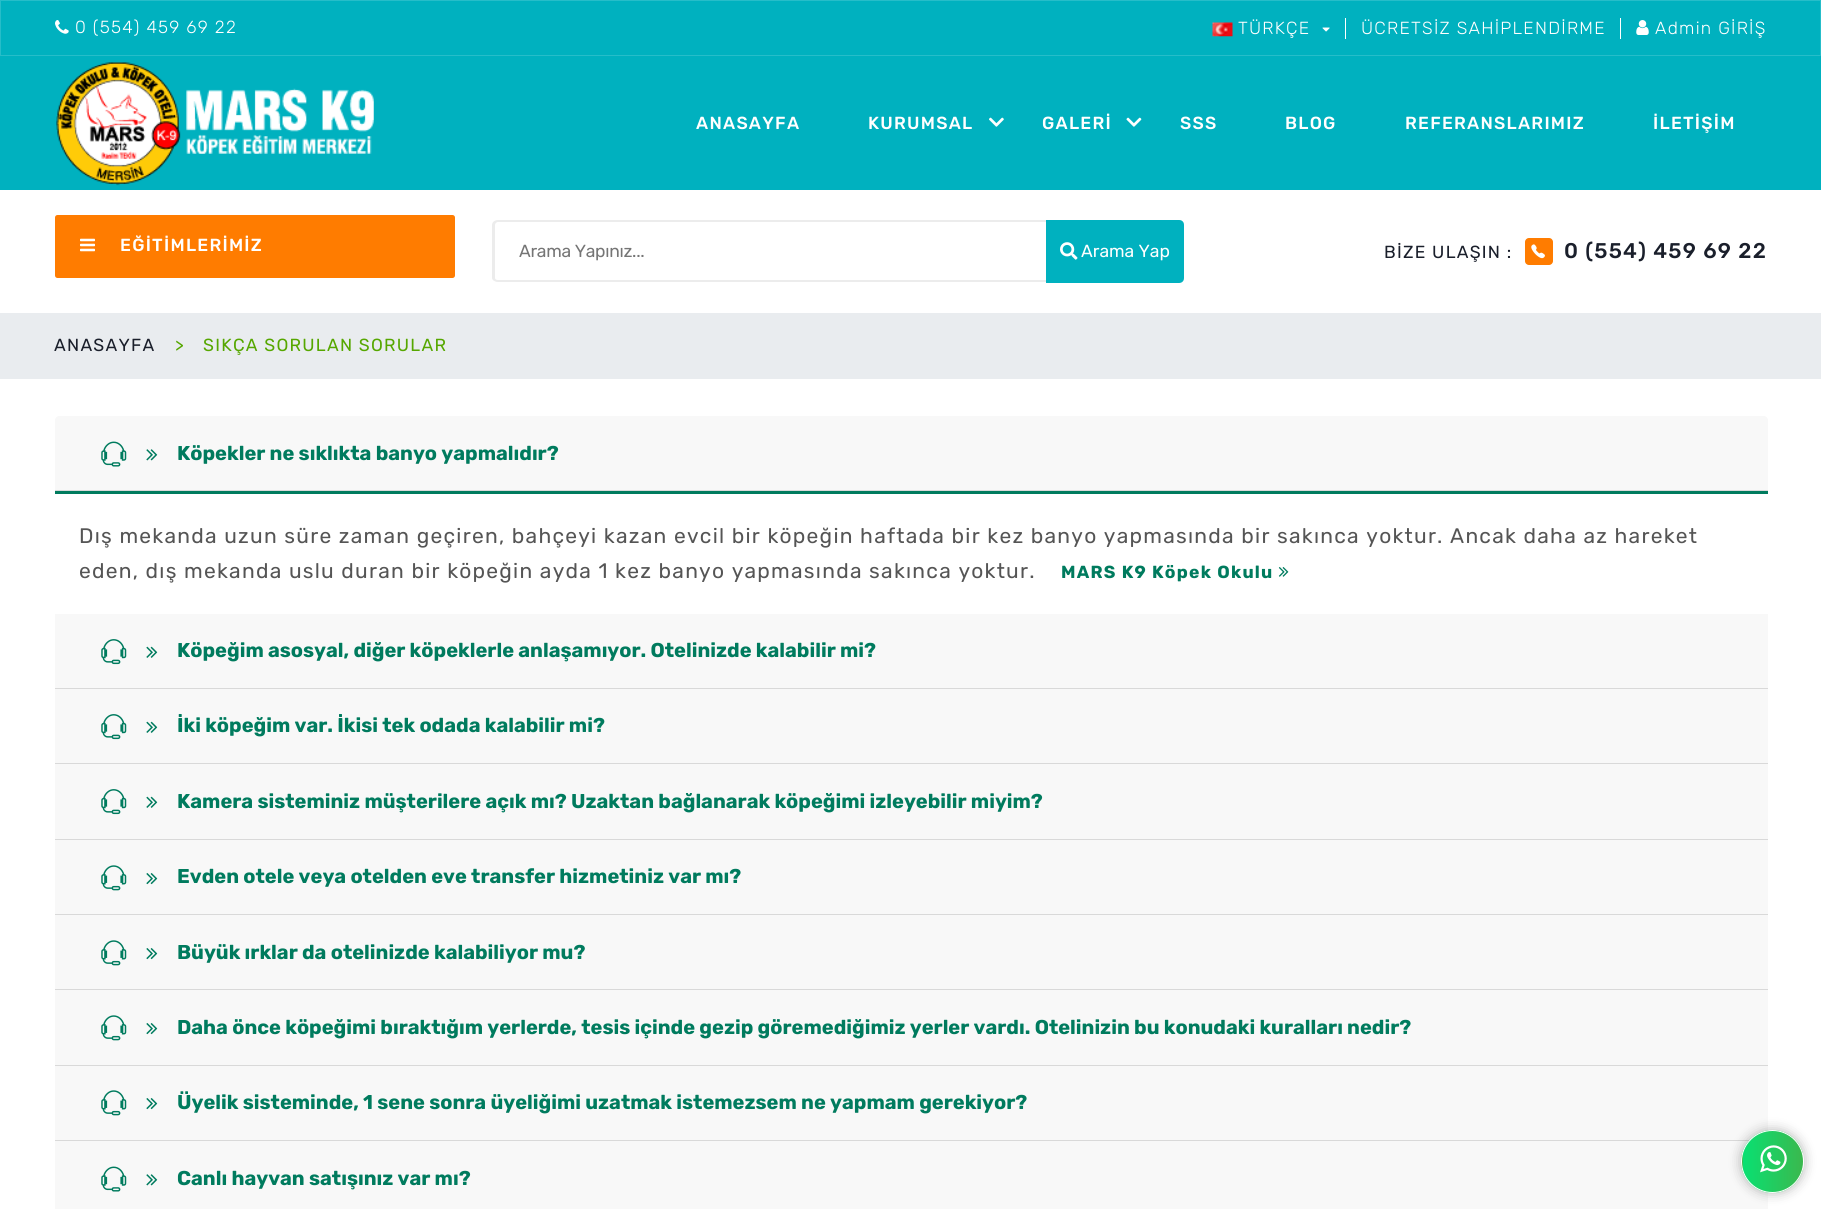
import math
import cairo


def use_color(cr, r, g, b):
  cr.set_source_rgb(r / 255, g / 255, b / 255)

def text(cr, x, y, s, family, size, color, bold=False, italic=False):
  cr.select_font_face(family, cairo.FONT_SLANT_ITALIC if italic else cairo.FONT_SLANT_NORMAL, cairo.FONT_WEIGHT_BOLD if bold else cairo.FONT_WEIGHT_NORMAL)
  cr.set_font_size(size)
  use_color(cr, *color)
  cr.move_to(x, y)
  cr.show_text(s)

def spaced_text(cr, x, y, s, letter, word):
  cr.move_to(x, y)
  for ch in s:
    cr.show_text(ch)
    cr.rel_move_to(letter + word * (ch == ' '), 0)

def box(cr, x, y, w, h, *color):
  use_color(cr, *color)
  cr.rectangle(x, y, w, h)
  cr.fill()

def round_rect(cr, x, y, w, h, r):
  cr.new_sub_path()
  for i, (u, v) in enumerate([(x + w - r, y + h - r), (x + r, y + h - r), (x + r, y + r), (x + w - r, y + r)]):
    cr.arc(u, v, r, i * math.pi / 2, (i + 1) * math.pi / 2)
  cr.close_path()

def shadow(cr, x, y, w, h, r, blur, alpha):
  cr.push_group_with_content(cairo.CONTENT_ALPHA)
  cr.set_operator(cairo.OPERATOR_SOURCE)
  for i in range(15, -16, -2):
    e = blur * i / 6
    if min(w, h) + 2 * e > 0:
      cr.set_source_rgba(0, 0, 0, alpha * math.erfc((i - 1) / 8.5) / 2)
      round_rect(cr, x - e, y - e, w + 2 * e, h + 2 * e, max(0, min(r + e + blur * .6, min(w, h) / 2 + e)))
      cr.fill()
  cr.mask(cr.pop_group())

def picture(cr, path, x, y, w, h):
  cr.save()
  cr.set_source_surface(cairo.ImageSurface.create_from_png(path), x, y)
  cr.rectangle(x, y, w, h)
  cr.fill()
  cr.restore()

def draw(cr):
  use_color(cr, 255, 255, 255)
  cr.paint()
  use_color(cr, 0, 177, 191)
  cr.rectangle(0.5, 0.5, 1820, 55)
  cr.fill_preserve()
  use_color(cr, 38, 189, 201)
  cr.set_line_width(1)
  cr.stroke()
  picture(cr, "img_01.png", 55, 20, 14, 14)
  picture(cr, "img_02.png", 1212, 22, 21, 15)
  picture(cr, "img_03.png", 1322, 27, 8, 5)
  box(cr, 1345, 18, 1, 21, 255, 255, 255)
  box(cr, 1620, 18, 1, 21, 255, 255, 255)
  picture(cr, "img_04.png", 1636, 20, 13, 15)
  box(cr, 0, 56, 1821, 134, 0, 177, 191)
  picture(cr, "img_05.png", 56, 62, 318, 124)
  picture(cr, "img_06.png", 989, 117, 15, 10)
  picture(cr, "img_07.png", 1126, 117, 16, 10)
  use_color(cr, 255, 124, 0)
  round_rect(cr, 55, 215, 400, 63, 2.5)
  cr.fill()
  picture(cr, "img_08.png", 80, 238, 15, 14)
  use_color(cr, 236, 236, 236)
  cr.set_fill_rule(cairo.FILL_RULE_EVEN_ODD)
  cr.new_path()
  cr.move_to(498, 220)
  cr.line_to(1179, 220)
  cr.curve_to(1182, 220, 1184, 222, 1184, 225)
  cr.line_to(1184, 278)
  cr.curve_to(1184, 280, 1182, 282, 1179, 282)
  cr.line_to(498, 282)
  cr.curve_to(495, 282, 492, 280, 492, 278)
  cr.line_to(492, 225)
  cr.curve_to(492, 222, 495, 220, 498, 220)
  cr.close_path()
  cr.move_to(498, 222)
  cr.line_to(1179, 222)
  cr.curve_to(1182, 222, 1184, 224, 1184, 225)
  cr.line_to(1184, 278)
  cr.curve_to(1184, 279, 1182, 280, 1179, 280)
  cr.line_to(498, 280)
  cr.curve_to(496, 280, 495, 279, 495, 278)
  cr.line_to(495, 225)
  cr.curve_to(495, 224, 496, 222, 498, 222)
  cr.close_path()
  cr.fill()
  use_color(cr, 0, 177, 191)
  cr.new_path()
  cr.move_to(1046, 220)
  cr.line_to(1179, 220)
  cr.curve_to(1182, 220, 1184, 222, 1184, 225)
  cr.line_to(1184, 278)
  cr.curve_to(1184, 281, 1182, 283, 1179, 283)
  cr.line_to(1046, 283)
  cr.close_path()
  cr.fill()
  picture(cr, "img_09.png", 1060, 242, 18, 18)
  use_color(cr, 255, 124, 0)
  round_rect(cr, 1525, 238, 28, 27, 4)
  cr.fill()
  picture(cr, "img_10.png", 1531, 244, 14, 15)
  box(cr, 0, 313, 1821, 66, 233, 236, 239)
  use_color(cr, 248, 248, 248)
  cr.new_path()
  cr.move_to(59, 416)
  cr.line_to(1764, 416)
  cr.curve_to(1766, 416, 1768, 418, 1768, 420)
  cr.line_to(1768, 491)
  cr.line_to(55, 491)
  cr.line_to(55, 420)
  cr.curve_to(55, 418, 57, 416, 59, 416)
  cr.close_path()
  cr.fill()
  box(cr, 55, 490, 1713, 1, 217, 217, 217)
  picture(cr, "img_11.png", 101, 441, 26, 26)
  picture(cr, "img_12.png", 146, 449, 12, 12)
  box(cr, 55, 491, 1713, 3, 0, 123, 94)
  picture(cr, "img_13.png", 1278, 567, 11, 10)
  box(cr, 55, 614, 1713, 74, 248, 248, 248)
  box(cr, 55, 688, 1713, 1, 217, 217, 217)
  picture(cr, "img_14.png", 101, 639, 26, 26)
  picture(cr, "img_15.png", 146, 646, 12, 12)
  box(cr, 55, 689, 1713, 74, 248, 248, 248)
  box(cr, 55, 763, 1713, 1, 217, 217, 217)
  picture(cr, "img_14.png", 101, 714, 26, 26)
  picture(cr, "img_15.png", 146, 721, 12, 12)
  box(cr, 55, 764, 1713, 75, 248, 248, 248)
  box(cr, 55, 839, 1713, 1, 217, 217, 217)
  picture(cr, "img_14.png", 101, 789, 26, 26)
  picture(cr, "img_15.png", 146, 796, 12, 12)
  box(cr, 55, 840, 1713, 74, 248, 248, 248)
  box(cr, 55, 914, 1713, 1, 217, 217, 217)
  picture(cr, "img_16.png", 101, 865, 26, 26)
  picture(cr, "img_17.png", 146, 873, 12, 12)
  box(cr, 55, 915, 1713, 74, 248, 248, 248)
  box(cr, 55, 989, 1713, 1, 217, 217, 217)
  picture(cr, "img_16.png", 101, 940, 26, 26)
  picture(cr, "img_17.png", 146, 948, 12, 12)
  box(cr, 55, 990, 1713, 75, 248, 248, 248)
  box(cr, 55, 1065, 1713, 1, 217, 217, 217)
  picture(cr, "img_16.png", 101, 1015, 26, 26)
  picture(cr, "img_17.png", 146, 1023, 12, 12)
  box(cr, 55, 1066, 1713, 74, 248, 248, 248)
  box(cr, 55, 1140, 1695, 1, 217, 217, 217)
  picture(cr, "img_16.png", 101, 1090, 26, 26)
  picture(cr, "img_17.png", 146, 1098, 12, 12)
  box(cr, 55, 1141, 1713, 68, 248, 248, 248)
  picture(cr, "img_11.png", 101, 1166, 26, 26)
  picture(cr, "img_12.png", 146, 1174, 12, 12)
  use_color(cr, 12, 12, 12)
  shadow(cr, 1741, 1130, 63, 63, 31.5, 6, 0.3)
  cr.save()
  cr.set_fill_rule(cairo.FILL_RULE_WINDING)
  round_rect(cr, 1741, 1130, 63, 63, 31.5)
  cr.clip()
  gradient = cairo.LinearGradient(1683, 1161, 1743, 1161)
  gradient.add_color_stop_rgba(0, 0.035, 0.878, 0.447, 1)
  gradient.add_color_stop_rgba(1, 0.231, 0.722, 0.306, 1)
  cr.set_source(gradient)
  cr.rectangle(1741, 1150, 2, 23)
  cr.fill()
  gradient = cairo.LinearGradient(1743, 1161, 1803, 1161)
  gradient.add_color_stop_rgba(0, 0.035, 0.878, 0.447, 1)
  gradient.add_color_stop_rgba(1, 0.231, 0.722, 0.306, 1)
  cr.set_source(gradient)
  cr.rectangle(1743, 1130, 60, 63)
  cr.fill()
  cr.restore()
  cr.arc(1772.5, 1161.5, 31, 0, 2 * math.pi)
  use_color(cr, 255, 255, 255)
  cr.stroke()
  picture(cr, "img_18.png", 1760, 1145, 27, 28)
  cr.select_font_face("Rubik Light")
  cr.set_font_size(17.5)
  spaced_text(cr, 75, 33, "0 (554) 459 69 22", 1.25, 0)
  spaced_text(cr, 1238, 34, "TÜRKÇE", 1.25, 0)
  spaced_text(cr, 1361, 34, "ÜCRETSİZ SAHİPLENDİRME", 1.25, 0)
  spaced_text(cr, 1655, 34, "Admin GİRİŞ", 1.25, 0)
  cr.select_font_face("Rubik Medium")
  spaced_text(cr, 696, 129, "ANASAYFA", 1.25, 0)
  spaced_text(cr, 868, 129, "KURUMSAL", 1.25, 0)
  spaced_text(cr, 1042, 129, "GALERİ", 1.25, 0)
  spaced_text(cr, 1180, 129, "SSS", 1.25, 0)
  spaced_text(cr, 1285, 129, "BLOG", 1.25, 0)
  spaced_text(cr, 1405, 129, "REFERANSLARIMIZ", 1.25, 0)
  spaced_text(cr, 1653, 129, "İLETİŞİM", 1.25, 0)
  spaced_text(cr, 120, 251, "EĞİTİMLERİMİZ", 1.25, 0)
  cr.select_font_face("Rubik")
  use_color(cr, 117, 117, 117)
  spaced_text(cr, 519, 257, "Arama Yapınız...", -0.3, 0)
  text(cr, 1081, 257, "Arama Yap", "Rubik", 17.5, (255, 255, 255))
  use_color(cr, 26, 31, 43)
  spaced_text(cr, 1384, 258, "BİZE ULAŞIN :", 1.25, 0)
  cr.select_font_face("Rubik Medium")
  cr.set_font_size(21.25)
  spaced_text(cr, 1564, 258, "0 (554) 459 69 22", 1.25, 0)
  cr.select_font_face("Rubik")
  cr.set_font_size(17.5)
  spaced_text(cr, 54, 351, "ANASAYFA", 1.25, 0)
  use_color(cr, 86, 167, 0)
  spaced_text(cr, 175, 351, ">", 1.25, 0)
  spaced_text(cr, 203, 351, "SIKÇA SORULAN SORULAR", 1.25, 0)
  text(cr, 177, 460, "Köpekler ne sıklıkta banyo yapmalıdır?", "Rubik", 20, (0, 123, 94), bold=True)
  cr.select_font_face("Rubik")
  cr.set_font_size(21)
  use_color(cr, 85, 85, 85)
  spaced_text(cr, 79, 543, "Dış mekanda uzun süre zaman geçiren, bahçeyi kazan evcil bir köpeğin haftada bir kez banyo yapmasında bir sakınca yoktur. Ancak daha az hareket", 1.25, 0)
  spaced_text(cr, 79, 578, "eden, dış mekanda uslu duran bir köpeğin ayda 1 kez banyo yapmasında sakınca yoktur.", 1.25, 0)
  cr.select_font_face("Rubik", cairo.FONT_SLANT_NORMAL, cairo.FONT_WEIGHT_BOLD)
  cr.set_font_size(17.5)
  use_color(cr, 0, 123, 94)
  spaced_text(cr, 1061, 578, "MARS K9 Köpek Okulu", 1.25, 0)
  text(cr, 177, 657, "Köpeğim asosyal, diğer köpeklerle anlaşamıyor. Otelinizde kalabilir mi?", "Rubik", 20, (0, 123, 94), bold=True)
  text(cr, 177, 732, "İki köpeğim var. İkisi tek odada kalabilir mi?", "Rubik", 20, (0, 123, 94), bold=True)
  text(cr, 177, 808, "Kamera sisteminiz müşterilere açık mı? Uzaktan bağlanarak köpeğimi izleyebilir miyim?", "Rubik", 20, (0, 123, 94), bold=True)
  text(cr, 177, 883, "Evden otele veya otelden eve transfer hizmetiniz var mı?", "Rubik", 20, (0, 123, 94), bold=True)
  text(cr, 177, 959, "Büyük ırklar da otelinizde kalabiliyor mu?", "Rubik", 20, (0, 123, 94), bold=True)
  text(cr, 177, 1034, "Daha önce köpeğimi bıraktığım yerlerde, tesis içinde gezip göremediğimiz yerler vardı. Otelinizin bu konudaki kuralları nedir?", "Rubik", 20, (0, 123, 94), bold=True)
  text(cr, 177, 1109, "Üyelik sisteminde, 1 sene sonra üyeliğimi uzatmak istemezsem ne yapmam gerekiyor?", "Rubik", 20, (0, 123, 94), bold=True)
  text(cr, 177, 1185, "Canlı hayvan satışınız var mı?", "Rubik", 20, (0, 123, 94), bold=True)


surface = cairo.ImageSurface(cairo.FORMAT_RGB24, 1821, 1209)
cr = cairo.Context(surface)
options = cairo.FontOptions()
options.set_hint_metrics(cairo.HINT_METRICS_OFF)
options.set_hint_style(cairo.HINT_STYLE_NONE)
cr.set_font_options(options)
cr.set_miter_limit(4)
draw(cr)
surface.write_to_png("out.png")
